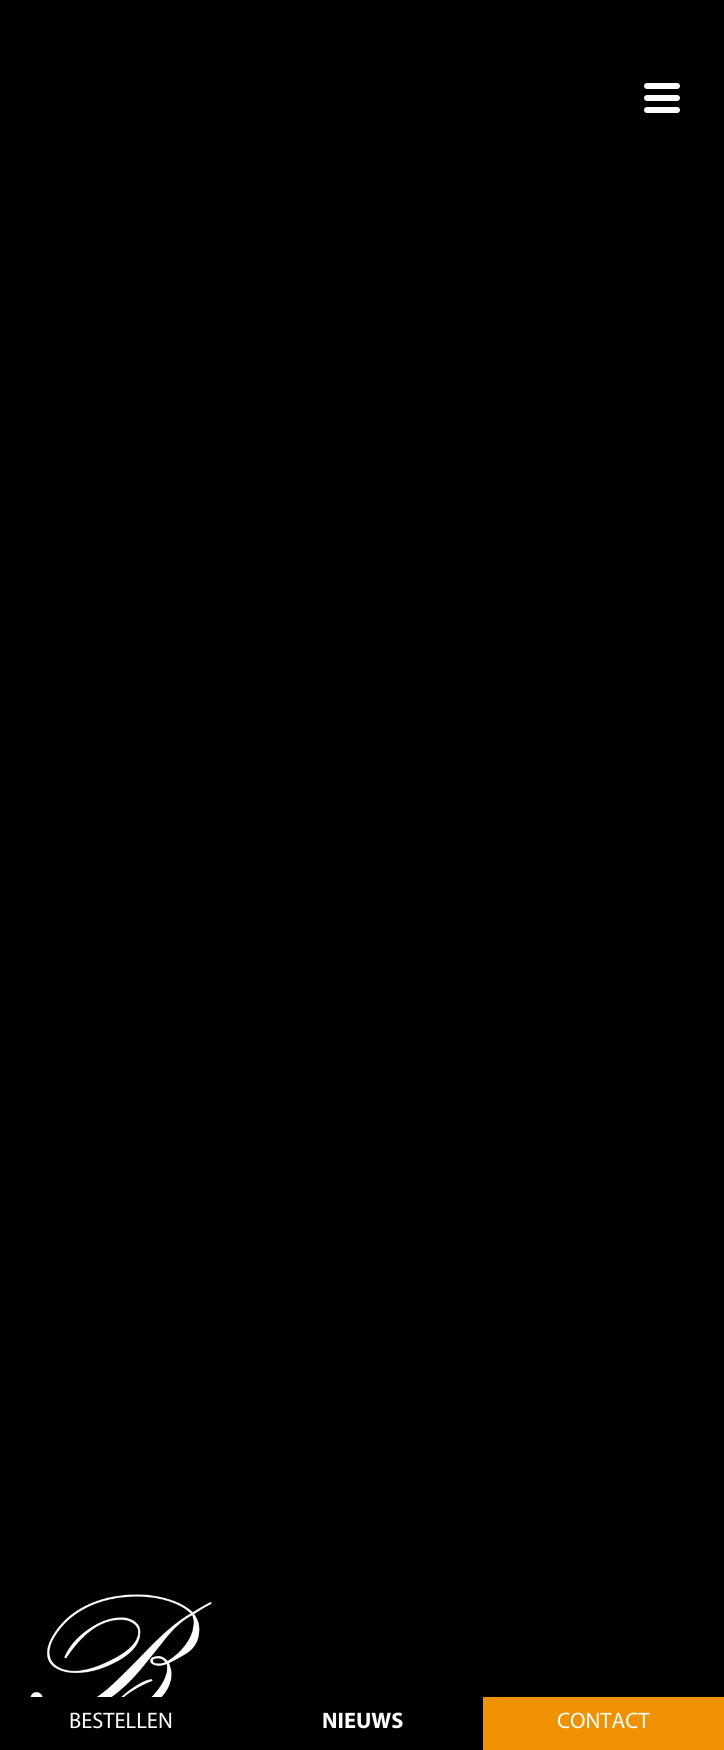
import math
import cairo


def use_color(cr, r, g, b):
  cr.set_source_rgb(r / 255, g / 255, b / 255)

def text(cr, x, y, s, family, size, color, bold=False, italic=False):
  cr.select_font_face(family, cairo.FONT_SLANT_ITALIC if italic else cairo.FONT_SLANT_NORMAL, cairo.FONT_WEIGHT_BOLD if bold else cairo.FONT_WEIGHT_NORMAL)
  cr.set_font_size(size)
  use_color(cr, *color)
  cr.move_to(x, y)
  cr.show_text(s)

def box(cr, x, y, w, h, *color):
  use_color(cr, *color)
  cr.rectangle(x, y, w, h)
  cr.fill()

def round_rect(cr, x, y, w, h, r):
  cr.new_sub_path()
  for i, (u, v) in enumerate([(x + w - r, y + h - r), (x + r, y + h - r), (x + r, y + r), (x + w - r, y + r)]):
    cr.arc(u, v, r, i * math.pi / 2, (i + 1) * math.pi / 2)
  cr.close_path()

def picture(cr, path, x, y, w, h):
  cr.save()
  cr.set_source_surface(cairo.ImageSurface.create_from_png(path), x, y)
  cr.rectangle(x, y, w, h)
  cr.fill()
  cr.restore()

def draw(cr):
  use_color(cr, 0, 0, 0)
  cr.paint()
  use_color(cr, 255, 255, 255)
  round_rect(cr, 644, 83, 36, 6, 3)
  cr.fill()
  round_rect(cr, 644, 95, 36, 6, 3)
  cr.fill()
  round_rect(cr, 644, 107, 36, 6, 3)
  cr.fill()
  picture(cr, "img_01.png", 30, 1594, 182, 103)
  box(cr, 483, 1697, 241, 53, 239, 145, 0)
  text(cr, 69, 1728, "BESTELLEN", "Myriad", 22.5, (255, 255, 255))
  text(cr, 322, 1728, "NIEUWS", "Myriad", 22.5, (255, 255, 255), bold=True)
  text(cr, 557, 1728, "CONTACT", "Myriad", 22.5, (255, 255, 255))


surface = cairo.ImageSurface(cairo.FORMAT_RGB24, 724, 1750)
cr = cairo.Context(surface)
options = cairo.FontOptions()
options.set_hint_metrics(cairo.HINT_METRICS_OFF)
options.set_hint_style(cairo.HINT_STYLE_NONE)
cr.set_font_options(options)
cr.set_miter_limit(4)
draw(cr)
surface.write_to_png("out.png")
